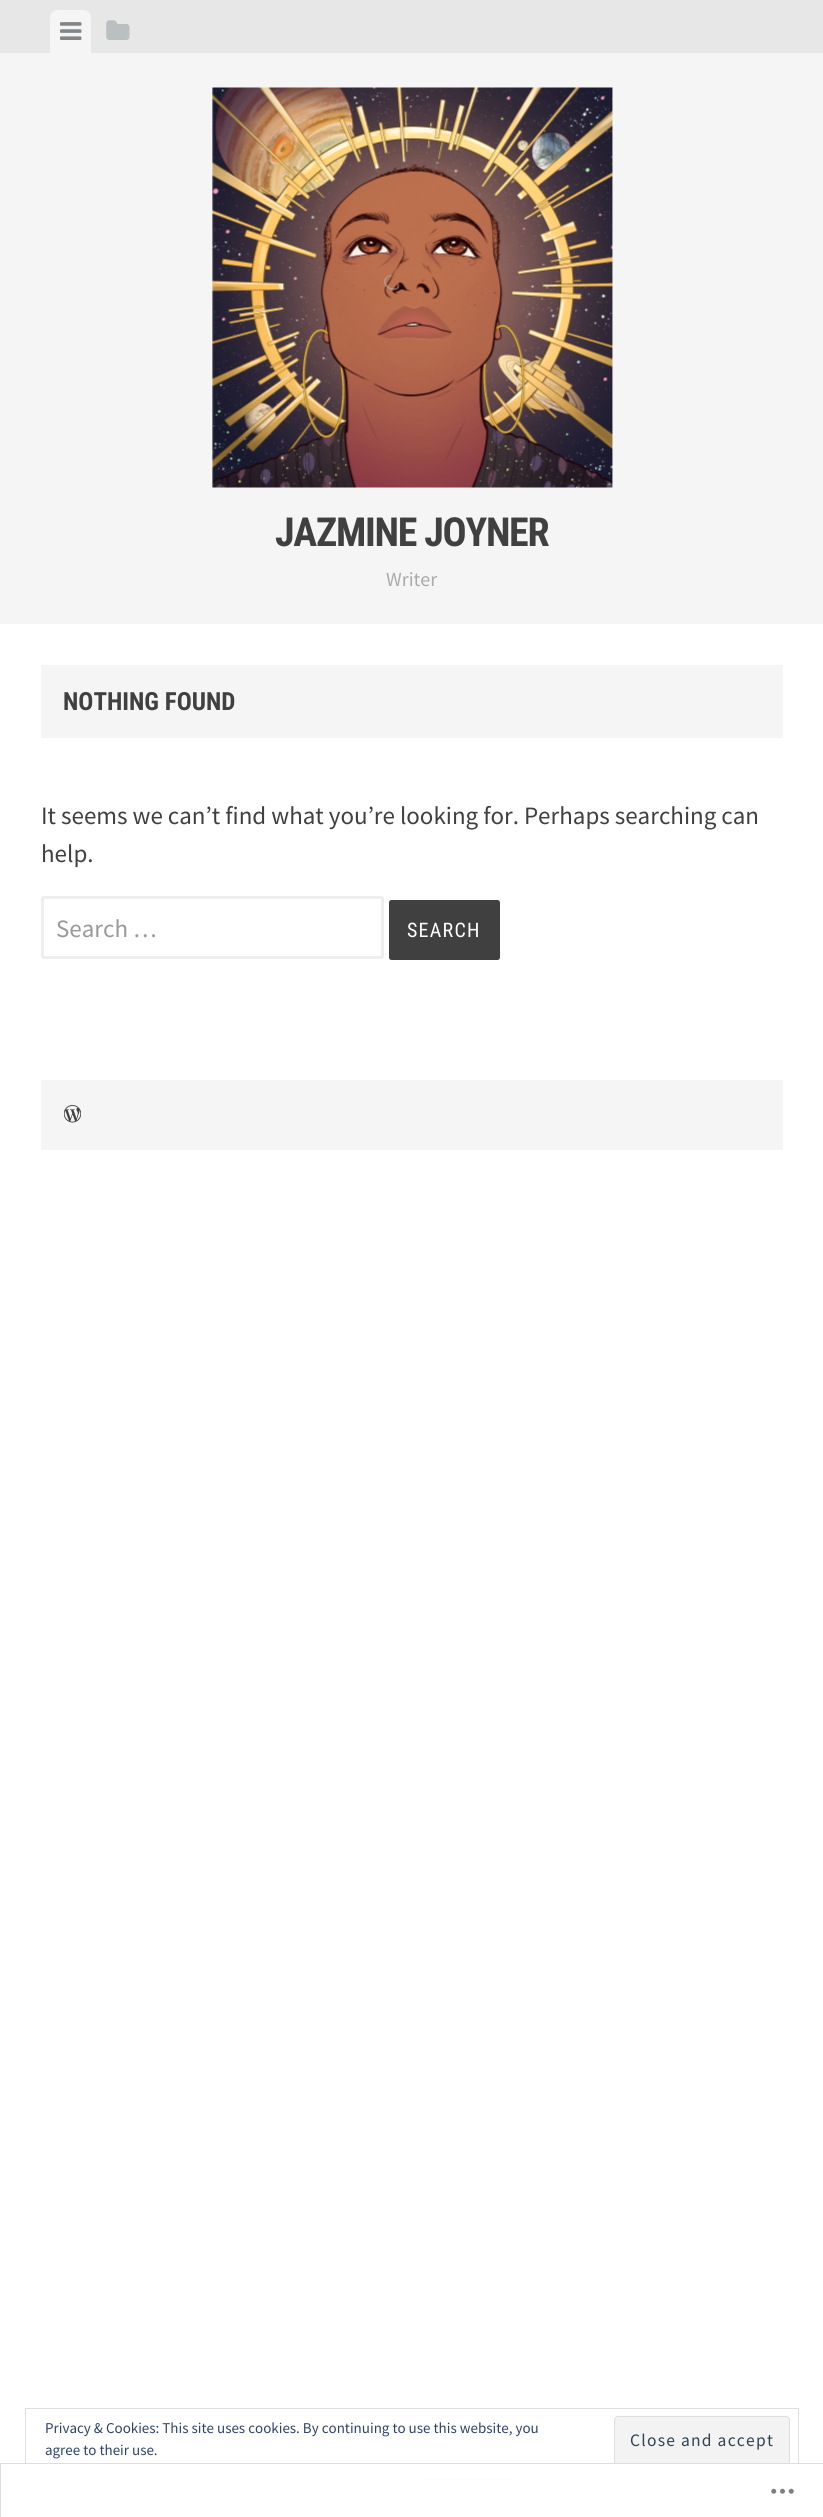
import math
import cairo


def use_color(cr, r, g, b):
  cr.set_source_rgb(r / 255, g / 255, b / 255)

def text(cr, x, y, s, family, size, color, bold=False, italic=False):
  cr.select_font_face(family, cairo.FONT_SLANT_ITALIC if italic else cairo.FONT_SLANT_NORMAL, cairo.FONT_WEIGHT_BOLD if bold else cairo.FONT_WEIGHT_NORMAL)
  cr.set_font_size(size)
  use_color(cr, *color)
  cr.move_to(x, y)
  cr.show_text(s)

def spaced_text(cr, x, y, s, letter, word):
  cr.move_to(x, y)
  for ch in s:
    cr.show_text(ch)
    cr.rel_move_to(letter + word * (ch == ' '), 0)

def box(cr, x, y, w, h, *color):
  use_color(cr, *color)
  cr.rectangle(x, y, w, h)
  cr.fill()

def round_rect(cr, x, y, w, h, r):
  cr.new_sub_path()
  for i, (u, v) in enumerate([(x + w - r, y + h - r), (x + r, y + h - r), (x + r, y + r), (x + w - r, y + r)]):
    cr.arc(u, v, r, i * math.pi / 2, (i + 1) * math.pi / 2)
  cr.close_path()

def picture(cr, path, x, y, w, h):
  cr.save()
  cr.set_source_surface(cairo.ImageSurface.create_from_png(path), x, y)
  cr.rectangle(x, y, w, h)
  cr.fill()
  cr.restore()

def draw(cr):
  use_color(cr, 255, 255, 255)
  cr.paint()
  box(cr, 0, 53, 823, 571, 245, 245, 245)
  box(cr, 0, 0, 823, 53, 231, 231, 231)
  use_color(cr, 245, 245, 245)
  cr.new_path()
  cr.move_to(58, 10)
  cr.line_to(83, 10)
  cr.curve_to(87.5, 10, 91, 13.5, 91, 18)
  cr.line_to(91, 53)
  cr.line_to(50, 53)
  cr.line_to(50, 18)
  cr.curve_to(50, 13.5, 53.5, 10, 58, 10)
  cr.close_path()
  cr.fill()
  picture(cr, "img_01.png", 60, 22, 22, 18)
  picture(cr, "img_02.png", 106, 20, 24, 20)
  picture(cr, "img_03.png", 212, 87, 401, 401)
  box(cr, 41, 665, 742, 73, 245, 245, 245)
  round_rect(cr, 42.5, 897.5, 340, 60, 1)
  use_color(cr, 238, 238, 238)
  cr.set_line_width(3)
  cr.stroke()
  use_color(cr, 64, 64, 64)
  round_rect(cr, 389, 900, 111, 60, 2.5)
  cr.fill()
  box(cr, 41, 1080, 742, 70, 245, 245, 245)
  picture(cr, "img_04.png", 64, 1105, 17, 18)
  cr.rectangle(25.5, 2408.5, 773, 84)
  use_color(cr, 222, 222, 222)
  cr.set_line_width(1)
  cr.stroke()
  use_color(cr, 243, 243, 243)
  round_rect(cr, 614.5, 2416.5, 175, 48, 3.5)
  cr.fill_preserve()
  use_color(cr, 222, 222, 222)
  cr.stroke()
  box(cr, 426, 2479, 84, 1, 46, 68, 103)
  cr.set_source_rgba(1, 1, 1, 0.98)
  cr.rectangle(25, 2464, 774, 29)
  cr.fill()
  cr.rectangle(0.5, 2463.5, 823, 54)
  use_color(cr, 221, 221, 223)
  cr.stroke()
  picture(cr, "img_05.png", 771, 2488, 23, 6)
  cr.select_font_face("Roboto Condensed", cairo.FONT_SLANT_NORMAL, cairo.FONT_WEIGHT_BOLD)
  cr.set_font_size(40)
  use_color(cr, 64, 64, 64)
  spaced_text(cr, 275, 546, "JAZMINE JOYNER", -1.25, 0)
  text(cr, 386, 586, "Writer", "Source Sans Pro", 20, (170, 170, 170))
  text(cr, 63, 710, "NOTHING FOUND", "Roboto Condensed", 25, (64, 64, 64), bold=True)
  text(cr, 41, 824, "It seems we can’t find what you’re looking for. Perhaps searching can", "Source Sans Pro", 25, (64, 64, 64))
  text(cr, 41, 862, "help.", "Source Sans Pro", 25, (64, 64, 64))
  text(cr, 56, 937, "Search …", "Source Sans Pro", 25, (153, 153, 153))
  cr.select_font_face("Roboto Condensed")
  cr.set_font_size(20)
  use_color(cr, 255, 255, 255)
  spaced_text(cr, 407, 937, "SEARCH", 1.25, 0)
  text(cr, 45, 2433, "Privacy & Cookies: This site uses cookies. By continuing to use this website, you", "Source Sans Pro", 15, (46, 68, 103))
  cr.set_font_size(17.5)
  use_color(cr, 46, 68, 83)
  spaced_text(cr, 630, 2446, "Close and accept", 1.25, 0)
  text(cr, 45, 2455, "agree to their use.", "Source Sans Pro", 15, (46, 68, 103))


surface = cairo.ImageSurface(cairo.FORMAT_RGB24, 823, 2517)
cr = cairo.Context(surface)
options = cairo.FontOptions()
options.set_hint_metrics(cairo.HINT_METRICS_OFF)
options.set_hint_style(cairo.HINT_STYLE_NONE)
cr.set_font_options(options)
cr.set_miter_limit(4)
draw(cr)
surface.write_to_png("out.png")
